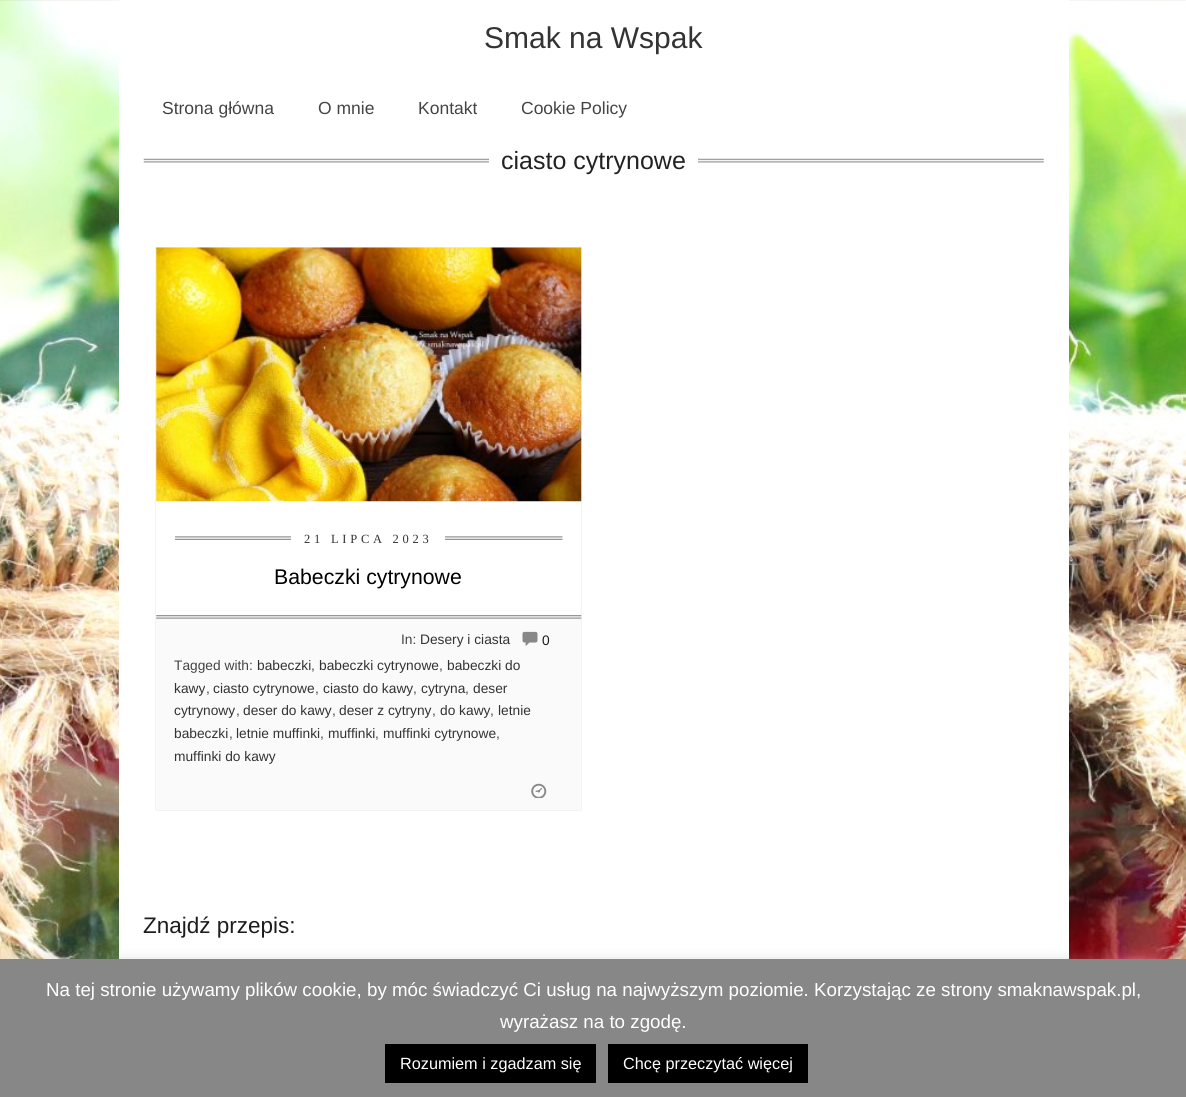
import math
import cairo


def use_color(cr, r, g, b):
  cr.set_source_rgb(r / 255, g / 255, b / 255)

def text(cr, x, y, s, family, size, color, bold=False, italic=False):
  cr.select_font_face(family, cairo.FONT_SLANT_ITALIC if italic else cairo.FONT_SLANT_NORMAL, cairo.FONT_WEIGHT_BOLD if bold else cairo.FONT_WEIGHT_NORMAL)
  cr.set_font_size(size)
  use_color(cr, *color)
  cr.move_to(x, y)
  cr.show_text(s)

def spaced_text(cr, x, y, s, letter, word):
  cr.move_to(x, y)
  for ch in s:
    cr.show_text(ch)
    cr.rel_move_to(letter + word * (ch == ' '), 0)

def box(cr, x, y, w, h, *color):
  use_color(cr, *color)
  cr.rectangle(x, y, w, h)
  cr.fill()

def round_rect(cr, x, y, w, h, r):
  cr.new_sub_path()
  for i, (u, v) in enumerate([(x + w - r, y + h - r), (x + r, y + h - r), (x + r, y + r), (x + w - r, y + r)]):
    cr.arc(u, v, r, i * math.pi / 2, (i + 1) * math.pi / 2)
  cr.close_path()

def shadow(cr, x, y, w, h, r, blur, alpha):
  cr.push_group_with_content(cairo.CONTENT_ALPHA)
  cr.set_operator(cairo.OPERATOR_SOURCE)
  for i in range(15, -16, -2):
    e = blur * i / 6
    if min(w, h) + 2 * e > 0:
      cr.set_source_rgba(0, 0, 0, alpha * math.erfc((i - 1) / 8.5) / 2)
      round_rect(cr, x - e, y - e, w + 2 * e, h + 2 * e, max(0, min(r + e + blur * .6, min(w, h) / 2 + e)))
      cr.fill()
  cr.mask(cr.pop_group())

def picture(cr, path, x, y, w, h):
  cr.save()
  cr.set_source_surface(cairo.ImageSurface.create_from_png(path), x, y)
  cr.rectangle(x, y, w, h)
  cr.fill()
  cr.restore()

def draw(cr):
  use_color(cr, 255, 255, 255)
  cr.paint()
  picture(cr, "img_01.png", 0, 0, 1186, 959)
  cr.rectangle(122, -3, 944, 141)
  use_color(cr, 255, 255, 255)
  cr.set_line_width(6)
  cr.stroke()
  box(cr, 125, 0, 938, 129, 255, 255, 255)
  cr.rectangle(122, 132, 944, 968)
  cr.stroke()
  box(cr, 125, 141, 938, 818, 255, 255, 255)
  picture(cr, "img_02.png", 143, 158, 901, 5)
  box(cr, 489, 158, 209, 5, 255, 255, 255)
  use_color(cr, 0, 0, 0)
  shadow(cr, 156, 248, 425, 562, 0, 0.5, 0.2)
  box(cr, 156, 248, 425, 367, 255, 255, 255)
  picture(cr, "img_03.png", 156, 247, 426, 255)
  picture(cr, "img_04.png", 175, 536, 388, 4)
  box(cr, 291, 536, 154, 4, 255, 255, 255)
  box(cr, 156, 615, 425, 195, 250, 250, 250)
  picture(cr, "img_05.png", 156, 615, 426, 4)
  picture(cr, "img_06.png", 522, 631, 16, 15)
  picture(cr, "img_07.png", 531, 783, 16, 15)
  use_color(cr, 172, 171, 171)
  shadow(cr, 0, 958, 1186, 138, 0, 6, 0.3)
  box(cr, 0, 959, 1186, 138, 135, 135, 135)
  box(cr, 385, 1044, 211, 39, 0, 0, 0)
  box(cr, 608, 1044, 200, 39, 0, 0, 0)
  text(cr, 484, 48, "Smak na Wspak", "Liberation Sans", 30, (51, 51, 51))
  text(cr, 162, 114, "Strona główna", "Liberation Sans", 17.5, (68, 68, 68))
  text(cr, 318, 114, "O mnie", "Liberation Sans", 17.5, (68, 68, 68))
  text(cr, 418, 114, "Kontakt", "Liberation Sans", 17.5, (68, 68, 68))
  text(cr, 521, 114, "Cookie Policy", "Liberation Sans", 17.5, (68, 68, 68))
  text(cr, 501, 169, "ciasto cytrynowe", "Liberation Sans", 25, (34, 34, 34))
  cr.select_font_face("Liberation Serif")
  cr.set_font_size(12.5)
  use_color(cr, 51, 51, 51)
  spaced_text(cr, 304, 543, "21 LIPCA 2023", 3.75, 0)
  text(cr, 274, 584, "Babeczki cytrynowe", "Liberation Sans", 21.25, (0, 0, 0))
  text(cr, 401, 644, "In:", "Liberation Sans", 13.75, (68, 68, 68))
  text(cr, 420, 644, "Desery i ciasta", "Liberation Sans", 13.75, (51, 51, 51))
  text(cr, 542, 645, "0", "Liberation Sans", 13.75, (29, 29, 27))
  text(cr, 174, 670, "Tagged with:", "Liberation Sans", 13.75, (68, 68, 68))
  text(cr, 257, 670, "babeczki", "Liberation Sans", 13.75, (51, 51, 51))
  text(cr, 311, 670, ",", "Liberation Sans", 13.75, (68, 68, 68))
  text(cr, 319, 670, "babeczki cytrynowe", "Liberation Sans", 13.75, (51, 51, 51))
  text(cr, 439, 670, ",", "Liberation Sans", 13.75, (68, 68, 68))
  text(cr, 447, 670, "babeczki do", "Liberation Sans", 13.75, (51, 51, 51))
  text(cr, 174, 693, "kawy", "Liberation Sans", 13.75, (51, 51, 51))
  text(cr, 206, 693, ",", "Liberation Sans", 13.75, (68, 68, 68))
  text(cr, 213, 693, "ciasto cytrynowe", "Liberation Sans", 13.75, (51, 51, 51))
  text(cr, 315, 693, ",", "Liberation Sans", 13.75, (68, 68, 68))
  text(cr, 323, 693, "ciasto do kawy", "Liberation Sans", 13.75, (51, 51, 51))
  text(cr, 413, 693, ",", "Liberation Sans", 13.75, (68, 68, 68))
  text(cr, 421, 693, "cytryna", "Liberation Sans", 13.75, (51, 51, 51))
  text(cr, 465, 693, ",", "Liberation Sans", 13.75, (68, 68, 68))
  text(cr, 473, 693, "deser", "Liberation Sans", 13.75, (51, 51, 51))
  text(cr, 174, 715, "cytrynowy", "Liberation Sans", 13.75, (51, 51, 51))
  text(cr, 236, 715, ",", "Liberation Sans", 13.75, (68, 68, 68))
  text(cr, 243, 715, "deser do kawy", "Liberation Sans", 13.75, (51, 51, 51))
  text(cr, 332, 715, ",", "Liberation Sans", 13.75, (68, 68, 68))
  text(cr, 339, 715, "deser z cytryny", "Liberation Sans", 13.75, (51, 51, 51))
  text(cr, 432, 715, ",", "Liberation Sans", 13.75, (68, 68, 68))
  text(cr, 440, 715, "do kawy", "Liberation Sans", 13.75, (51, 51, 51))
  text(cr, 490, 715, ",", "Liberation Sans", 13.75, (68, 68, 68))
  text(cr, 498, 715, "letnie", "Liberation Sans", 13.75, (51, 51, 51))
  text(cr, 174, 738, "babeczki", "Liberation Sans", 13.75, (51, 51, 51))
  text(cr, 229, 738, ",", "Liberation Sans", 13.75, (68, 68, 68))
  text(cr, 236, 738, "letnie muffinki", "Liberation Sans", 13.75, (51, 51, 51))
  text(cr, 320, 738, ",", "Liberation Sans", 13.75, (68, 68, 68))
  text(cr, 328, 738, "muffinki", "Liberation Sans", 13.75, (51, 51, 51))
  text(cr, 375, 738, ",", "Liberation Sans", 13.75, (68, 68, 68))
  text(cr, 383, 738, "muffinki cytrynowe", "Liberation Sans", 13.75, (51, 51, 51))
  text(cr, 496, 738, ",", "Liberation Sans", 13.75, (68, 68, 68))
  text(cr, 174, 761, "muffinki do kawy", "Liberation Sans", 13.75, (51, 51, 51))
  text(cr, 143, 933, "Znajdź przepis:", "Liberation Sans", 22.5, (29, 29, 27))
  text(cr, 46, 996, "Na tej stronie używamy plików cookie, by móc świadczyć Ci usług na najwyższym poziomie. Korzystając ze strony smaknawspak.pl,", "Liberation Sans", 18.75, (255, 255, 255))
  text(cr, 500, 1028, "wyrażasz na to zgodę.", "Liberation Sans", 18.75, (255, 255, 255))
  text(cr, 400, 1069, "Rozumiem i zgadzam się", "Liberation Sans", 16.25, (255, 255, 255))
  text(cr, 623, 1069, "Chcę przeczytać więcej", "Liberation Sans", 16.25, (255, 255, 255))


surface = cairo.ImageSurface(cairo.FORMAT_RGB24, 1186, 1097)
cr = cairo.Context(surface)
options = cairo.FontOptions()
options.set_hint_metrics(cairo.HINT_METRICS_OFF)
options.set_hint_style(cairo.HINT_STYLE_NONE)
cr.set_font_options(options)
cr.set_miter_limit(4)
draw(cr)
surface.write_to_png("out.png")
